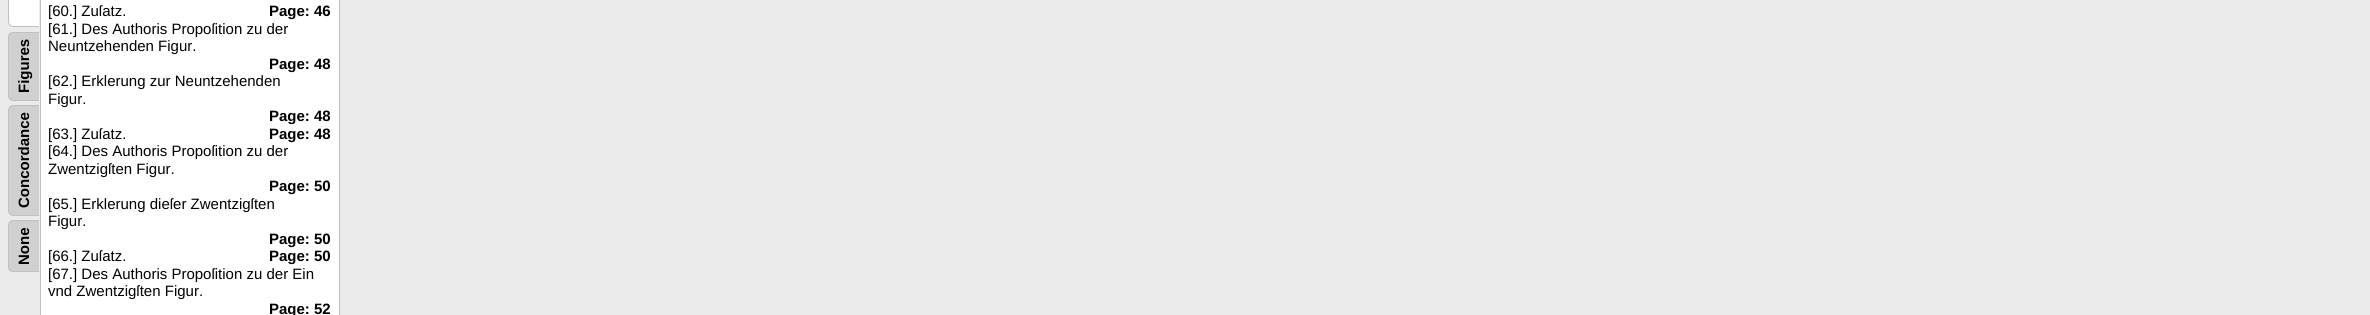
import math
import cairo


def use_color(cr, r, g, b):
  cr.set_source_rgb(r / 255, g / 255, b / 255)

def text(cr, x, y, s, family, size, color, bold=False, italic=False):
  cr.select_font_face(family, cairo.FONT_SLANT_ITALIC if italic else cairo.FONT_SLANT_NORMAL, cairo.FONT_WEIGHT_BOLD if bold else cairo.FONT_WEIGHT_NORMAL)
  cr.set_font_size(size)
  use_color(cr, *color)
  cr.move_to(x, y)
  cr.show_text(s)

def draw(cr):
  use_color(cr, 235, 235, 235)
  cr.paint()
  use_color(cr, 255, 255, 255)
  cr.new_path()
  cr.move_to(8, 21)
  cr.line_to(8, -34)
  cr.curve_to(8, -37, 10, -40, 14, -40)
  cr.line_to(39, -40)
  cr.line_to(39, 27)
  cr.line_to(14, 27)
  cr.curve_to(10, 27, 8, 25, 8, 21)
  cr.close_path()
  cr.fill()
  use_color(cr, 192, 192, 192)
  cr.set_fill_rule(cairo.FILL_RULE_EVEN_ODD)
  cr.new_path()
  cr.move_to(8, 21)
  cr.line_to(8, -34)
  cr.curve_to(8, -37, 10, -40, 14, -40)
  cr.line_to(39, -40)
  cr.line_to(39, 27)
  cr.line_to(14, 27)
  cr.curve_to(10, 27, 8, 25, 8, 21)
  cr.close_path()
  cr.move_to(9, 21)
  cr.line_to(9, -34)
  cr.curve_to(9, -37, 11, -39, 14, -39)
  cr.line_to(39, -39)
  cr.line_to(39, 26)
  cr.line_to(14, 26)
  cr.curve_to(11, 26, 9, 24, 9, 21)
  cr.close_path()
  cr.fill()
  use_color(cr, 208, 208, 208)
  cr.set_fill_rule(cairo.FILL_RULE_WINDING)
  cr.new_path()
  cr.move_to(8, 95)
  cr.line_to(8, 38)
  cr.curve_to(8, 34, 10, 32, 14, 32)
  cr.line_to(39, 32)
  cr.line_to(39, 101)
  cr.line_to(14, 101)
  cr.curve_to(10, 101, 8, 98, 8, 95)
  cr.close_path()
  cr.fill()
  use_color(cr, 192, 192, 192)
  cr.set_fill_rule(cairo.FILL_RULE_EVEN_ODD)
  cr.new_path()
  cr.move_to(8, 95)
  cr.line_to(8, 38)
  cr.curve_to(8, 34, 10, 32, 14, 32)
  cr.line_to(39, 32)
  cr.line_to(39, 101)
  cr.line_to(14, 101)
  cr.curve_to(10, 101, 8, 98, 8, 95)
  cr.close_path()
  cr.move_to(9, 95)
  cr.line_to(9, 38)
  cr.curve_to(9, 35, 11, 33, 14, 33)
  cr.line_to(39, 33)
  cr.line_to(39, 100)
  cr.line_to(14, 100)
  cr.curve_to(11, 100, 9, 97, 9, 95)
  cr.close_path()
  cr.fill()
  use_color(cr, 208, 208, 208)
  cr.set_fill_rule(cairo.FILL_RULE_WINDING)
  cr.new_path()
  cr.move_to(8, 210)
  cr.line_to(8, 111)
  cr.curve_to(8, 108, 10, 105, 14, 105)
  cr.line_to(39, 105)
  cr.line_to(39, 216)
  cr.line_to(14, 216)
  cr.curve_to(10, 216, 8, 213, 8, 210)
  cr.close_path()
  cr.fill()
  use_color(cr, 192, 192, 192)
  cr.set_fill_rule(cairo.FILL_RULE_EVEN_ODD)
  cr.new_path()
  cr.move_to(8, 210)
  cr.line_to(8, 111)
  cr.curve_to(8, 108, 10, 105, 14, 105)
  cr.line_to(39, 105)
  cr.line_to(39, 216)
  cr.line_to(14, 216)
  cr.curve_to(10, 216, 8, 213, 8, 210)
  cr.close_path()
  cr.move_to(9, 210)
  cr.line_to(9, 111)
  cr.curve_to(9, 108, 11, 106, 14, 106)
  cr.line_to(39, 106)
  cr.line_to(39, 215)
  cr.line_to(14, 215)
  cr.curve_to(11, 215, 9, 212, 9, 210)
  cr.close_path()
  cr.fill()
  use_color(cr, 208, 208, 208)
  cr.set_fill_rule(cairo.FILL_RULE_WINDING)
  cr.new_path()
  cr.move_to(8, 266)
  cr.line_to(8, 226)
  cr.curve_to(8, 223, 10, 220, 14, 220)
  cr.line_to(39, 220)
  cr.line_to(39, 272)
  cr.line_to(14, 272)
  cr.curve_to(10, 272, 8, 270, 8, 266)
  cr.close_path()
  cr.fill()
  use_color(cr, 192, 192, 192)
  cr.set_fill_rule(cairo.FILL_RULE_EVEN_ODD)
  cr.new_path()
  cr.move_to(8, 266)
  cr.line_to(8, 226)
  cr.curve_to(8, 223, 10, 220, 14, 220)
  cr.line_to(39, 220)
  cr.line_to(39, 272)
  cr.line_to(14, 272)
  cr.curve_to(10, 272, 8, 270, 8, 266)
  cr.close_path()
  cr.move_to(9, 266)
  cr.line_to(9, 226)
  cr.curve_to(9, 223, 11, 221, 14, 221)
  cr.line_to(39, 221)
  cr.line_to(39, 271)
  cr.line_to(14, 271)
  cr.curve_to(11, 271, 9, 269, 9, 266)
  cr.close_path()
  cr.fill()
  use_color(cr, 255, 255, 255)
  cr.rectangle(40.5, -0.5, 299, 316)
  cr.fill_preserve()
  use_color(cr, 192, 192, 192)
  cr.set_line_width(1)
  cr.stroke()
  cr.save()
  cr.translate(29, 93)
  cr.rotate(-90 * math.pi / 180)
  text(cr, 0, 0, "Figures", "Liberation Sans", 15, (0, 0, 0), bold=True)
  cr.restore()
  cr.save()
  cr.translate(29, 208)
  cr.rotate(-90 * math.pi / 180)
  text(cr, 0, 0, "Concordance", "Liberation Sans", 15, (0, 0, 0), bold=True)
  cr.restore()
  cr.save()
  cr.translate(29, 265)
  cr.rotate(-90 * math.pi / 180)
  text(cr, 0, 0, "None", "Liberation Sans", 15, (0, 0, 0), bold=True)
  cr.restore()
  text(cr, 48, 16, "[60.] Zuſatz.", "Liberation Sans", 15, (0, 0, 0))
  text(cr, 269, 16, "Page: 46", "Liberation Sans", 15, (0, 0, 0), bold=True)
  text(cr, 48, 34, "[61.] Des Authoris Propoſition zu der", "Liberation Sans", 15, (0, 0, 0))
  text(cr, 48, 51, "Neuntzehenden Figur.", "Liberation Sans", 15, (0, 0, 0))
  text(cr, 269, 69, "Page: 48", "Liberation Sans", 15, (0, 0, 0), bold=True)
  text(cr, 48, 86, "[62.] Erklerung zur Neuntzehenden", "Liberation Sans", 15, (0, 0, 0))
  text(cr, 48, 104, "Figur.", "Liberation Sans", 15, (0, 0, 0))
  text(cr, 269, 121, "Page: 48", "Liberation Sans", 15, (0, 0, 0), bold=True)
  text(cr, 48, 139, "[63.] Zuſatz.", "Liberation Sans", 15, (0, 0, 0))
  text(cr, 269, 139, "Page: 48", "Liberation Sans", 15, (0, 0, 0), bold=True)
  text(cr, 48, 156, "[64.] Des Authoris Propoſition zu der", "Liberation Sans", 15, (0, 0, 0))
  text(cr, 48, 174, "Zwentzigſten Figur.", "Liberation Sans", 15, (0, 0, 0))
  text(cr, 269, 191, "Page: 50", "Liberation Sans", 15, (0, 0, 0), bold=True)
  text(cr, 48, 209, "[65.] Erklerung dieſer Zwentzigſten", "Liberation Sans", 15, (0, 0, 0))
  text(cr, 48, 226, "Figur.", "Liberation Sans", 15, (0, 0, 0))
  text(cr, 269, 244, "Page: 50", "Liberation Sans", 15, (0, 0, 0), bold=True)
  text(cr, 48, 261, "[66.] Zuſatz.", "Liberation Sans", 15, (0, 0, 0))
  text(cr, 269, 261, "Page: 50", "Liberation Sans", 15, (0, 0, 0), bold=True)
  text(cr, 48, 279, "[67.] Des Authoris Propoſition zu der Ein", "Liberation Sans", 15, (0, 0, 0))
  text(cr, 48, 296, "vnd Zwentzigſten Figur.", "Liberation Sans", 15, (0, 0, 0))
  text(cr, 269, 314, "Page: 52", "Liberation Sans", 15, (0, 0, 0), bold=True)


surface = cairo.ImageSurface(cairo.FORMAT_RGB24, 2370, 315)
cr = cairo.Context(surface)
options = cairo.FontOptions()
options.set_hint_metrics(cairo.HINT_METRICS_OFF)
options.set_hint_style(cairo.HINT_STYLE_NONE)
cr.set_font_options(options)
cr.set_miter_limit(4)
draw(cr)
surface.write_to_png("out.png")
